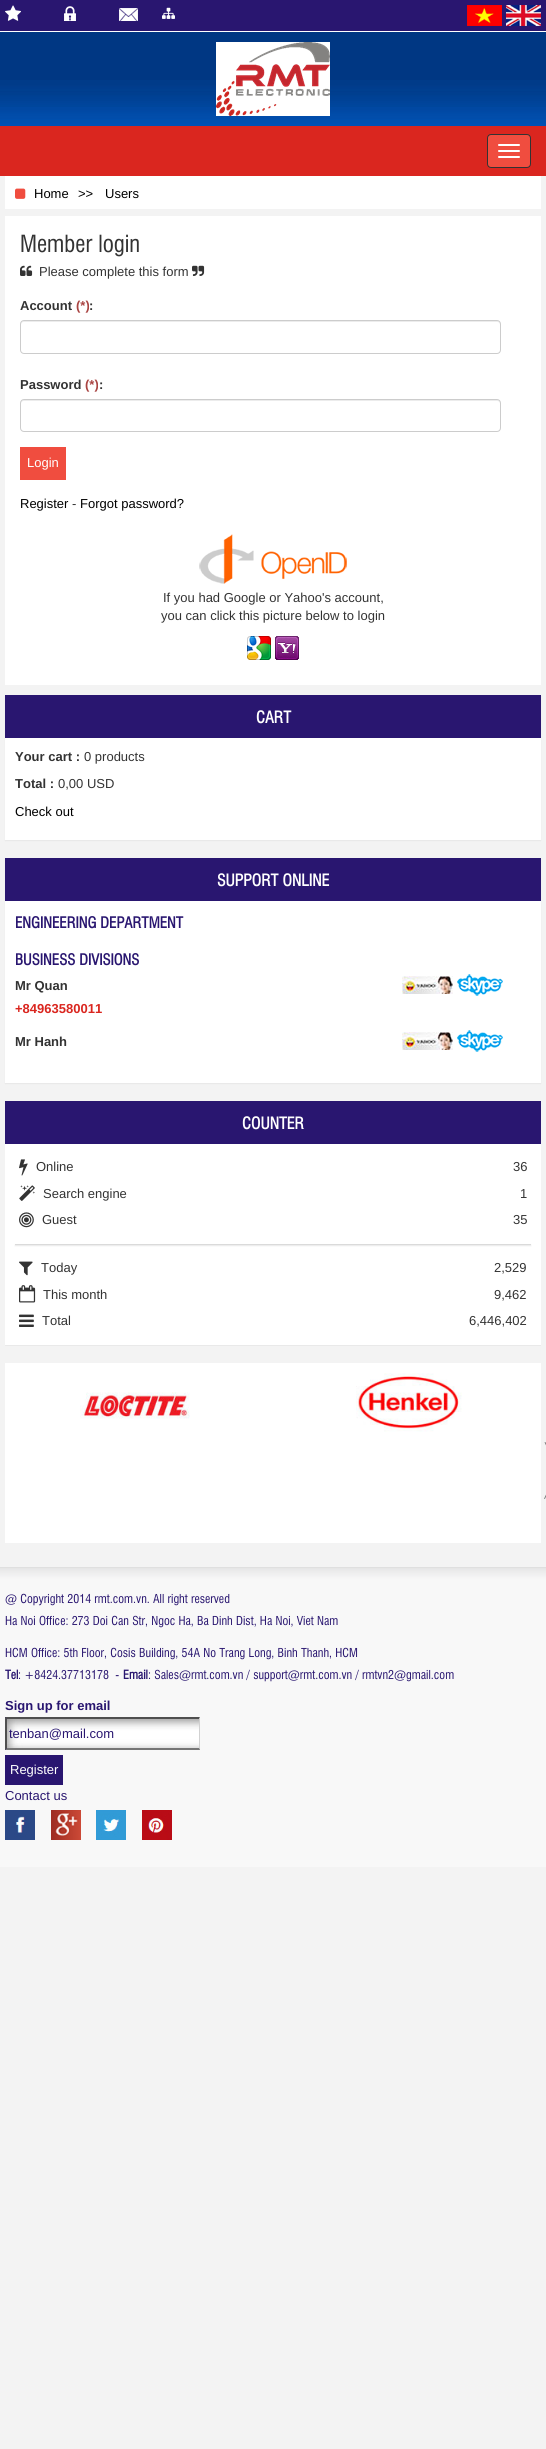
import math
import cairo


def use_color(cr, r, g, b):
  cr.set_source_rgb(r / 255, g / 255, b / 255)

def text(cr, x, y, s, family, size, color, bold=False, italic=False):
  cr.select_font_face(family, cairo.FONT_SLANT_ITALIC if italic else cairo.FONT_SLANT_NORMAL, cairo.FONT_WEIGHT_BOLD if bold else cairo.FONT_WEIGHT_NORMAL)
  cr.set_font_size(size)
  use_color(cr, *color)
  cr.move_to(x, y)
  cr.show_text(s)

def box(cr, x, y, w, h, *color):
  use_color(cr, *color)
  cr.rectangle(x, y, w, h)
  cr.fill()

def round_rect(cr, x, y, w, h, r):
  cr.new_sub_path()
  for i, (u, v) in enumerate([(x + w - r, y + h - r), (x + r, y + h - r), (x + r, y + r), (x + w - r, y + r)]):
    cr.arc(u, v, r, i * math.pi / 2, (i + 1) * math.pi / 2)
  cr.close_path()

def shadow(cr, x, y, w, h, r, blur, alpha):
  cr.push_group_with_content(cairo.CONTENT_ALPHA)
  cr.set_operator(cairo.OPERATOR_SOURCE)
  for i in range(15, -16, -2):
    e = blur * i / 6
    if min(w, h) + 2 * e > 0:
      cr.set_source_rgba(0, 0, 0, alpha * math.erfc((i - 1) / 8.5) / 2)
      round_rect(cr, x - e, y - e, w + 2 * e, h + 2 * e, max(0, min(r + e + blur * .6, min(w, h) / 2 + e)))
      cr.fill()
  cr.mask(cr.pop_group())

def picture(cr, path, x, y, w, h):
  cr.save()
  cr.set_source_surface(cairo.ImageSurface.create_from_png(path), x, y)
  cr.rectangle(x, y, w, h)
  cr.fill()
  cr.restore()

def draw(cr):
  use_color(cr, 243, 243, 243)
  cr.paint()
  box(cr, 0, 0, 546, 31, 41, 22, 112)
  box(cr, 0, 31, 546, 1, 255, 255, 255)
  picture(cr, "img_01.png", 5, 5, 16, 16)
  picture(cr, "img_02.png", 64, 6, 12, 15)
  picture(cr, "img_03.png", 119, 8, 19, 13)
  picture(cr, "img_04.png", 162, 7, 13, 12)
  picture(cr, "img_05.png", 467, 5, 35, 21)
  picture(cr, "img_06.png", 506, 5, 35, 21)
  box(cr, 0, 32, 546, 48, 0, 55, 131)
  picture(cr, "img_07.png", 0, 80, 546, 46)
  picture(cr, "img_08.png", 216, 42, 114, 74)
  box(cr, 0, 126, 546, 50, 218, 38, 31)
  use_color(cr, 240, 77, 63)
  round_rect(cr, 487.5, 134.5, 43, 33, 3.5)
  cr.fill_preserve()
  use_color(cr, 51, 51, 51)
  cr.set_line_width(1)
  cr.stroke()
  use_color(cr, 255, 255, 255)
  round_rect(cr, 498, 144, 22, 2, 1)
  cr.fill()
  round_rect(cr, 498, 150, 22, 2, 1)
  cr.fill()
  round_rect(cr, 498, 156, 22, 2, 1)
  cr.fill()
  box(cr, 5, 176, 536, 33, 255, 255, 255)
  picture(cr, "img_09.png", 15, 188, 11, 11)
  box(cr, 5, 216, 536, 469, 255, 255, 255)
  picture(cr, "img_10.png", 20, 265, 13, 11)
  picture(cr, "img_11.png", 192, 265, 13, 11)
  use_color(cr, 236, 236, 236)
  cr.new_path()
  cr.move_to(24, 322)
  cr.line_to(497, 322)
  cr.curve_to(499, 322, 500, 323, 500, 325)
  cr.line_to(500, 324)
  cr.curve_to(500, 322, 499, 321, 497, 321)
  cr.line_to(24, 321)
  cr.curve_to(22, 321, 21, 322, 21, 324)
  cr.line_to(21, 325)
  cr.curve_to(21, 323, 22, 322, 24, 322)
  cr.close_path()
  cr.fill()
  round_rect(cr, 20.5, 320.5, 480, 33, 3.5)
  use_color(cr, 204, 204, 204)
  cr.stroke()
  use_color(cr, 236, 236, 236)
  cr.new_path()
  cr.move_to(24, 401)
  cr.line_to(497, 401)
  cr.curve_to(499, 401, 500, 402, 500, 404)
  cr.line_to(500, 403)
  cr.curve_to(500, 401, 499, 400, 497, 400)
  cr.line_to(24, 400)
  cr.curve_to(22, 400, 21, 401, 21, 403)
  cr.line_to(21, 404)
  cr.curve_to(21, 402, 22, 401, 24, 401)
  cr.close_path()
  cr.fill()
  round_rect(cr, 20.5, 399.5, 480, 32, 3.5)
  use_color(cr, 204, 204, 204)
  cr.stroke()
  box(cr, 20, 447, 46, 33, 240, 77, 63)
  picture(cr, "img_12.png", 199, 534, 148, 50)
  picture(cr, "img_13.png", 247, 636, 24, 24)
  picture(cr, "img_14.png", 275, 636, 24, 24)
  use_color(cr, 0, 0, 0)
  shadow(cr, 5, 696, 536, 145, 0, 0.5, 0.05)
  box(cr, 5, 738, 536, 102, 255, 255, 255)
  box(cr, 5, 695, 536, 43, 41, 22, 112)
  use_color(cr, 0, 0, 0)
  shadow(cr, 5, 859, 536, 225, 0, 0.5, 0.05)
  box(cr, 5, 901, 536, 182, 255, 255, 255)
  box(cr, 5, 858, 536, 43, 41, 22, 112)
  picture(cr, "img_15.png", 402, 976, 51, 18)
  picture(cr, "img_16.png", 457, 974, 46, 22)
  picture(cr, "img_15.png", 402, 1032, 51, 18)
  picture(cr, "img_16.png", 457, 1030, 46, 22)
  box(cr, 5, 1144, 536, 201, 255, 255, 255)
  cr.save()
  cr.rectangle(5, 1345, 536, 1)
  cr.clip()
  use_color(cr, 0, 0, 0)
  shadow(cr, 5, 1102, 536, 244, 0, 0.5, 0.05)
  cr.restore()
  box(cr, 5, 1101, 536, 43, 41, 22, 112)
  picture(cr, "img_17.png", 19, 1159, 9, 17)
  picture(cr, "img_18.png", 19, 1185, 16, 16)
  picture(cr, "img_19.png", 19, 1212, 15, 16)
  use_color(cr, 0, 0, 0)
  shadow(cr, 15, 1245, 516, 1, 0, 0.5, 0.1)
  box(cr, 15, 1244, 516, 1, 218, 218, 218)
  picture(cr, "img_20.png", 19, 1261, 14, 15)
  picture(cr, "img_21.png", 19, 1285, 17, 18)
  picture(cr, "img_22.png", 19, 1314, 15, 13)
  box(cr, 5, 1363, 536, 180, 255, 255, 255)
  picture(cr, "img_23.png", 80, 1392, 110, 27)
  picture(cr, "img_24.png", 356, 1373, 106, 59)
  picture(cr, "img_25.png", 544, 1442, 2, 57)
  picture(cr, "img_26.png", 0, 1567, 546, 300)
  picture(cr, "img_27.png", 5, 1717, 195, 33)
  use_color(cr, 79, 79, 79)
  cr.new_path()
  cr.move_to(5, 1717)
  cr.line_to(200, 1717)
  cr.line_to(199, 1719)
  cr.line_to(7, 1719)
  cr.close_path()
  cr.fill()
  use_color(cr, 209, 209, 209)
  cr.new_path()
  cr.move_to(200, 1717)
  cr.line_to(200, 1750)
  cr.line_to(199, 1748)
  cr.line_to(199, 1719)
  cr.close_path()
  cr.fill()
  use_color(cr, 118, 118, 118)
  cr.new_path()
  cr.move_to(200, 1750)
  cr.line_to(5, 1750)
  cr.line_to(7, 1748)
  cr.line_to(199, 1748)
  cr.close_path()
  cr.fill()
  use_color(cr, 79, 79, 79)
  cr.new_path()
  cr.move_to(5, 1750)
  cr.line_to(5, 1717)
  cr.line_to(7, 1719)
  cr.line_to(7, 1748)
  cr.close_path()
  cr.fill()
  box(cr, 5, 1755, 58, 30, 41, 22, 112)
  picture(cr, "img_28.png", 5, 1810, 30, 30)
  picture(cr, "img_29.png", 51, 1810, 30, 30)
  picture(cr, "img_30.png", 96, 1810, 30, 30)
  picture(cr, "img_31.png", 142, 1810, 30, 30)
  text(cr, 34, 198, "Home", "Liberation Sans", 13, (0, 0, 0))
  text(cr, 78, 198, ">>", "Liberation Sans", 13, (0, 0, 0))
  text(cr, 105, 198, "Users", "Liberation Sans", 13, (0, 0, 0))
  text(cr, 20, 252, "Member login", "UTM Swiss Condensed", 23, (51, 51, 51))
  text(cr, 39, 276, "Please complete this form", "Liberation Sans", 13, (51, 51, 51))
  text(cr, 20, 310, "Account", "Liberation Sans", 13, (51, 51, 51), bold=True)
  text(cr, 76, 310, "(*)", "Liberation Sans", 13, (169, 68, 66), bold=True)
  text(cr, 89, 310, ":", "Liberation Sans", 13, (51, 51, 51), bold=True)
  text(cr, 20, 389, "Password", "Liberation Sans", 13, (51, 51, 51), bold=True)
  text(cr, 85, 389, "(*)", "Liberation Sans", 13, (169, 68, 66), bold=True)
  text(cr, 99, 389, ":", "Liberation Sans", 13, (51, 51, 51), bold=True)
  text(cr, 27, 467, "Login", "Liberation Sans", 13, (255, 255, 255))
  text(cr, 20, 508, "Register", "Liberation Sans", 13, (0, 0, 0))
  text(cr, 72, 508, "-", "Liberation Sans", 13, (51, 51, 51))
  text(cr, 80, 508, "Forgot password?", "Liberation Sans", 13, (0, 0, 0))
  text(cr, 163, 602, "If you had Google or Yahoo's account,", "Liberation Sans", 13, (51, 51, 51))
  text(cr, 161, 620, "you can click this picture below to login", "Liberation Sans", 13, (51, 51, 51))
  text(cr, 256, 723, "CART", "UTM Swiss Condensed", 16, (255, 255, 255), bold=True)
  text(cr, 15, 761, "Your cart :", "Liberation Sans", 13, (51, 51, 51), bold=True)
  text(cr, 84, 761, "0 products", "Liberation Sans", 13, (51, 51, 51))
  text(cr, 15, 788, "Total :", "Liberation Sans", 13, (51, 51, 51), bold=True)
  text(cr, 58, 788, "0,00 USD", "Liberation Sans", 13, (51, 51, 51))
  text(cr, 15, 816, "Check out", "Liberation Sans", 13, (0, 0, 0))
  text(cr, 217, 886, "SUPPORT ONLINE", "UTM Swiss Condensed", 16, (255, 255, 255), bold=True)
  text(cr, 15, 928, "ENGINEERING DEPARTMENT", "UTM Swiss Condensed", 15, (41, 22, 112), bold=True)
  text(cr, 15, 965, "BUSINESS DIVISIONS", "UTM Swiss Condensed", 15, (41, 22, 112), bold=True)
  text(cr, 15, 990, "Mr Quan", "Liberation Sans", 13, (51, 51, 51), bold=True)
  text(cr, 15, 1013, "+84963580011", "Liberation Sans", 13, (218, 38, 31), bold=True)
  text(cr, 15, 1046, "Mr Hanh", "Liberation Sans", 13, (51, 51, 51), bold=True)
  text(cr, 242, 1129, "COUNTER", "UTM Swiss Condensed", 16, (255, 255, 255), bold=True)
  text(cr, 36, 1171, "Online", "Liberation Sans", 13, (51, 51, 51))
  text(cr, 513, 1171, "36", "Liberation Sans", 13, (51, 51, 51))
  text(cr, 43, 1198, "Search engine", "Liberation Sans", 13, (51, 51, 51))
  text(cr, 520, 1198, "1", "Liberation Sans", 13, (51, 51, 51))
  text(cr, 42, 1224, "Guest", "Liberation Sans", 13, (51, 51, 51))
  text(cr, 513, 1224, "35", "Liberation Sans", 13, (51, 51, 51))
  text(cr, 41, 1272, "Today", "Liberation Sans", 13, (51, 51, 51))
  text(cr, 494, 1272, "2,529", "Liberation Sans", 13, (51, 51, 51))
  text(cr, 43, 1299, "This month", "Liberation Sans", 13, (51, 51, 51))
  text(cr, 494, 1299, "9,462", "Liberation Sans", 13, (51, 51, 51))
  text(cr, 42, 1325, "Total", "Liberation Sans", 13, (51, 51, 51))
  text(cr, 469, 1325, "6,446,402", "Liberation Sans", 13, (51, 51, 51))
  text(cr, 5, 1603, "@ Copyright 2014 rmt.com.vn. All right reserved", "UTM Swiss Condensed", 12, (41, 22, 112))
  text(cr, 5, 1625, "Ha Noi Office: 273 Doi Can Str, Ngoc Ha, Ba Dinh Dist, Ha Noi, Viet Nam", "UTM Swiss Condensed", 12, (41, 22, 112))
  text(cr, 5, 1657, "HCM Office: 5th Floor, Cosis Building, 54A No Trang Long, Binh Thanh, HCM", "UTM Swiss Condensed", 12, (41, 22, 112))
  text(cr, 5, 1679, "Tel", "UTM Swiss Condensed", 12, (41, 22, 112), bold=True)
  text(cr, 18, 1679, ": +8424.37713178  -", "UTM Swiss Condensed", 12, (41, 22, 112))
  text(cr, 123, 1679, "Email", "UTM Swiss Condensed", 12, (41, 22, 112), bold=True)
  text(cr, 148, 1679, ": Sales@rmt.com.vn / support@rmt.com.vn / rmtvn2@gmail.com", "UTM Swiss Condensed", 12, (41, 22, 112))
  text(cr, 5, 1710, "Sign up for email", "Liberation Sans", 13, (41, 22, 112), bold=True)
  text(cr, 9, 1738, "tenban@mail.com", "Liberation Sans", 13, (41, 22, 112))
  text(cr, 10, 1774, "Register", "Liberation Sans", 13, (255, 255, 255))
  text(cr, 5, 1800, "Contact us", "Liberation Sans", 13, (41, 22, 112))


surface = cairo.ImageSurface(cairo.FORMAT_RGB24, 546, 2449)
cr = cairo.Context(surface)
options = cairo.FontOptions()
options.set_hint_metrics(cairo.HINT_METRICS_OFF)
options.set_hint_style(cairo.HINT_STYLE_NONE)
cr.set_font_options(options)
cr.set_miter_limit(4)
draw(cr)
surface.write_to_png("out.png")
